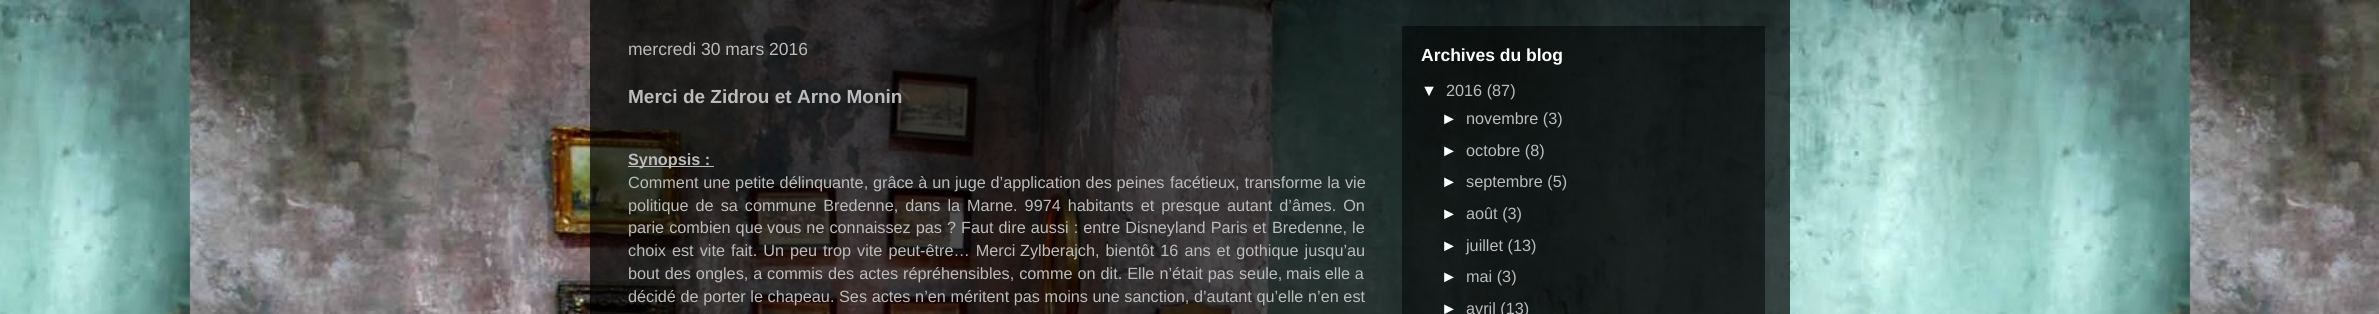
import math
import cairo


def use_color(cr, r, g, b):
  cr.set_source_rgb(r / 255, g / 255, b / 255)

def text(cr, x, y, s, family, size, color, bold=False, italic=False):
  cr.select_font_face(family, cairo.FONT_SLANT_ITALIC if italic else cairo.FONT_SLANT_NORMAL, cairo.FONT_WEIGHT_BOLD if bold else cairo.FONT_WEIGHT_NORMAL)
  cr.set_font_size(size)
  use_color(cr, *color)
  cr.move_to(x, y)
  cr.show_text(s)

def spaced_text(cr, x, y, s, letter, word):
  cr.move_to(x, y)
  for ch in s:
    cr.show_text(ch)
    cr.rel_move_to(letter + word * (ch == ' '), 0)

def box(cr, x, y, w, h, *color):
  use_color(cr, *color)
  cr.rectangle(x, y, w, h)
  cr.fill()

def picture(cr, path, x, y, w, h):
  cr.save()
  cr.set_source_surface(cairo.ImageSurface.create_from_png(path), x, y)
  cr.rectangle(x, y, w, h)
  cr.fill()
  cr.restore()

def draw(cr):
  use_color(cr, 255, 255, 255)
  cr.paint()
  picture(cr, "img_01.png", 0, 0, 2379, 314)
  cr.set_source_rgba(0, 0, 0, 0.7)
  cr.rectangle(590, 0, 1200, 314)
  cr.fill()
  box(cr, 628, 166, 86, 1, 187, 187, 187)
  cr.set_source_rgba(0, 0, 0, 0.5)
  cr.rectangle(1402, 26, 363, 288)
  cr.fill()
  text(cr, 628, 55, "mercredi 30 mars 2016", "Liberation Sans", 17.5, (187, 187, 187))
  text(cr, 628, 103, "Merci de Zidrou et Arno Monin", "Liberation Sans", 19, (187, 187, 187), bold=True)
  text(cr, 628, 165, "Synopsis :", "Liberation Sans", 16.25, (187, 187, 187), bold=True)
  cr.select_font_face("Liberation Sans")
  spaced_text(cr, 628, 188, "Comment une petite délinquante, grâce à un juge d’application des peines", 0, 0.25)
  spaced_text(cr, 1170, 188, "facétieux, transforme la vie", 0, 0.5)
  spaced_text(cr, 628, 211, "politique de sa commune Bredenne, dans la", 0, 2.5)
  spaced_text(cr, 967, 211, "Marne. 9974 habitants et presque autant d’âmes. On", 0, 2.5)
  spaced_text(cr, 628, 233, "parie combien que", 0, 0.5)
  spaced_text(cr, 767, 233, "vous ne connaissez pas ? Faut dire aussi : entre Disneyland Paris et", 0, 0.5)
  spaced_text(cr, 1272, 233, "Bredenne, le", 0, 0.5)
  spaced_text(cr, 628, 256, "choix est vite fait. Un peu trop vite peut-être… Merci", 0, 1.5)
  spaced_text(cr, 1020, 256, "Zylberajch, bientôt 16 ans et gothique jusqu’au", 0, 1.5)
  spaced_text(cr, 628, 279, "bout des ongles, a", 0, 0.5)
  spaced_text(cr, 767, 279, "commis des actes répréhensibles, comme on dit. Elle n’était pas seule,", 0, 0.5)
  text(cr, 1286, 279, "mais elle a", "Liberation Sans", 16.25, (187, 187, 187))
  spaced_text(cr, 628, 302, "décidé de porter le chapeau. Ses actes n’en méritent pas moins une sanction, d’autant qu’elle n’en est", 0, 0.1)
  text(cr, 1421, 61, "Archives du blog", "Liberation Sans", 17.5, (255, 255, 255), bold=True)
  text(cr, 1421, 96, "▼", "Liberation Sans", 16.25, (255, 255, 255))
  text(cr, 1446, 96, "2016 (87)", "Liberation Sans", 16.25, (187, 187, 187))
  text(cr, 1441, 124, "►", "Liberation Sans", 16.25, (255, 255, 255))
  text(cr, 1466, 124, "novembre (3)", "Liberation Sans", 16.25, (187, 187, 187))
  text(cr, 1441, 156, "►", "Liberation Sans", 16.25, (255, 255, 255))
  text(cr, 1466, 156, "octobre (8)", "Liberation Sans", 16.25, (187, 187, 187))
  text(cr, 1441, 187, "►", "Liberation Sans", 16.25, (255, 255, 255))
  text(cr, 1466, 187, "septembre (5)", "Liberation Sans", 16.25, (187, 187, 187))
  text(cr, 1441, 219, "►", "Liberation Sans", 16.25, (255, 255, 255))
  text(cr, 1466, 219, "août (3)", "Liberation Sans", 16.25, (187, 187, 187))
  text(cr, 1441, 251, "►", "Liberation Sans", 16.25, (255, 255, 255))
  text(cr, 1466, 251, "juillet (13)", "Liberation Sans", 16.25, (187, 187, 187))
  text(cr, 1441, 282, "►", "Liberation Sans", 16.25, (255, 255, 255))
  text(cr, 1466, 282, "mai (3)", "Liberation Sans", 16.25, (187, 187, 187))
  text(cr, 1441, 314, "►", "Liberation Sans", 16.25, (255, 255, 255))
  text(cr, 1466, 314, "avril (13)", "Liberation Sans", 16.25, (187, 187, 187))


surface = cairo.ImageSurface(cairo.FORMAT_RGB24, 2379, 314)
cr = cairo.Context(surface)
options = cairo.FontOptions()
options.set_hint_metrics(cairo.HINT_METRICS_OFF)
options.set_hint_style(cairo.HINT_STYLE_NONE)
cr.set_font_options(options)
cr.set_miter_limit(4)
draw(cr)
surface.write_to_png("out.png")
